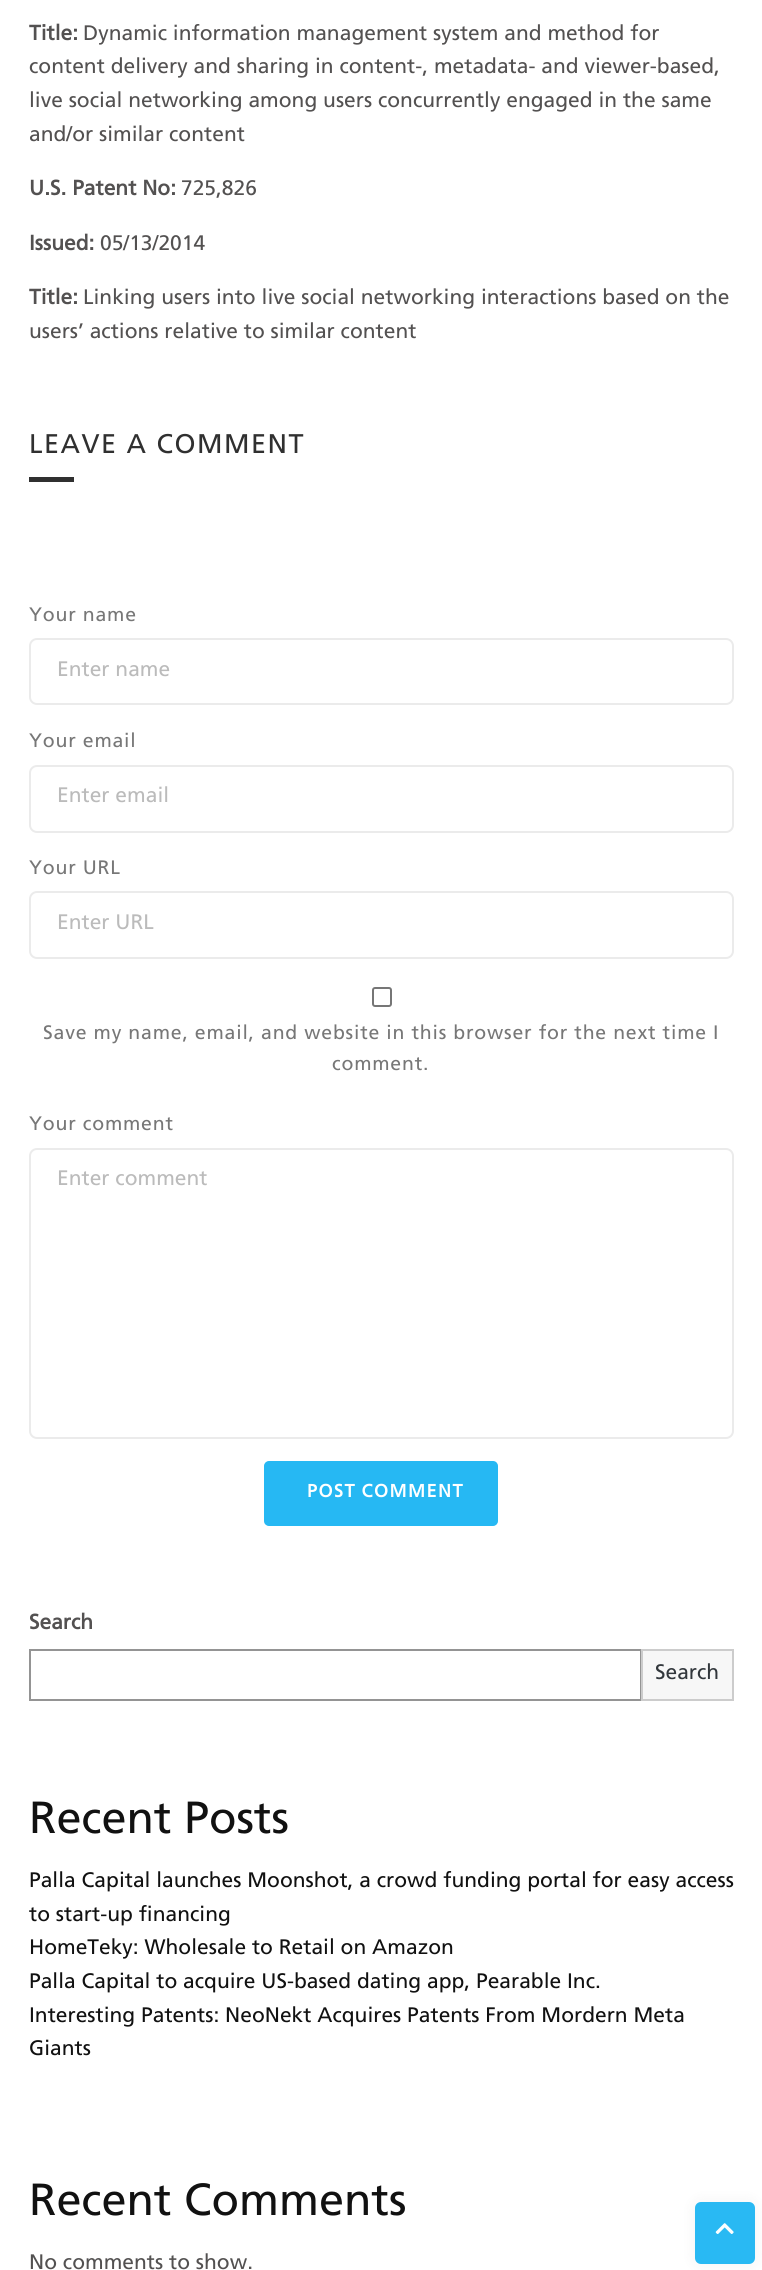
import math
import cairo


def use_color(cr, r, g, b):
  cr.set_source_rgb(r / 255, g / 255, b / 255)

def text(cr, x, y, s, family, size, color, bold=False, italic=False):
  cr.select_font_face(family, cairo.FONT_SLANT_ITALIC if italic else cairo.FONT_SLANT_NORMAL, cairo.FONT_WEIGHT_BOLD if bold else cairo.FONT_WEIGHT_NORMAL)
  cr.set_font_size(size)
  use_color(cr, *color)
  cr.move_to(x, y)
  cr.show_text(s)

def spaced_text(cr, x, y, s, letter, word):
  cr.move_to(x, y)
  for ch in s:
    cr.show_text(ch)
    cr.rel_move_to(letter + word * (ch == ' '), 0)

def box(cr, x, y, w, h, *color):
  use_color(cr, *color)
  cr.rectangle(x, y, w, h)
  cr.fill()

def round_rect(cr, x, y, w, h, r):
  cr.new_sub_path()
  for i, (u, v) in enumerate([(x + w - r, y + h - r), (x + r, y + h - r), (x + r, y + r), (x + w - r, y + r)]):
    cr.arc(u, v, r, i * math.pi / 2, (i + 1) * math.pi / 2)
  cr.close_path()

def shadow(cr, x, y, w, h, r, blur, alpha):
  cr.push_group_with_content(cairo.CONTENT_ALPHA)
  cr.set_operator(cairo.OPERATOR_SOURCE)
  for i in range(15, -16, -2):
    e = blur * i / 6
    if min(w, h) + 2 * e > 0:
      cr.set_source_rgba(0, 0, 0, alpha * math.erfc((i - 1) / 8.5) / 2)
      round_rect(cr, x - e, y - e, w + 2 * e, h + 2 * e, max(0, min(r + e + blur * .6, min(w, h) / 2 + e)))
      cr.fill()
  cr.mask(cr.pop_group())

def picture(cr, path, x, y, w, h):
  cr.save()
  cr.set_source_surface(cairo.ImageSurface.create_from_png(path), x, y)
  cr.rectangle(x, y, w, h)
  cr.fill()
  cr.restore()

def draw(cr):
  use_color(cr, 255, 255, 255)
  cr.paint()
  box(cr, 29, 477, 45, 5, 48, 48, 48)
  round_rect(cr, 30, 639, 703, 65, 7)
  use_color(cr, 235, 235, 235)
  cr.stroke()
  round_rect(cr, 30, 766, 703, 66, 7)
  cr.stroke()
  round_rect(cr, 30, 892, 703, 66, 7)
  cr.stroke()
  round_rect(cr, 373, 988, 18, 18, 2)
  use_color(cr, 118, 118, 118)
  cr.stroke()
  round_rect(cr, 30, 1149, 703, 289, 7)
  use_color(cr, 235, 235, 235)
  cr.stroke()
  use_color(cr, 38, 184, 243)
  round_rect(cr, 265, 1462, 232, 63, 4)
  cr.fill_preserve()
  cr.stroke()
  cr.rectangle(30, 1650, 611, 50)
  use_color(cr, 148, 148, 148)
  cr.stroke()
  use_color(cr, 247, 247, 247)
  cr.rectangle(642, 1650, 91, 50)
  cr.fill_preserve()
  use_color(cr, 204, 204, 204)
  cr.stroke()
  use_color(cr, 3, 3, 3)
  shadow(cr, 695, 2202, 60, 62, 6, 7.5, 0.05)
  use_color(cr, 41, 185, 243)
  round_rect(cr, 695, 2202, 60, 62, 6)
  cr.fill()
  picture(cr, "img_01.png", 715, 2223, 19, 11)
  text(cr, 29, 40, "Title:", "Frutiger", 21, (83, 81, 81), bold=True)
  text(cr, 83, 40, "Dynamic information management system and method for", "Frutiger", 21, (83, 81, 81))
  text(cr, 29, 73, "content delivery and sharing in content-, metadata- and viewer-based,", "Frutiger", 21, (83, 81, 81))
  text(cr, 29, 107, "live social networking among users concurrently engaged in the same", "Frutiger", 21, (83, 81, 81))
  text(cr, 29, 141, "and/or similar content", "Frutiger", 21, (83, 81, 81))
  text(cr, 29, 195, "U.S. Patent No:", "Frutiger", 21, (83, 81, 81), bold=True)
  text(cr, 181, 195, "725,826", "Frutiger", 21, (83, 81, 81))
  text(cr, 29, 250, "Issued:", "Frutiger", 21, (83, 81, 81), bold=True)
  text(cr, 100, 250, "05/13/2014", "Frutiger", 21, (83, 81, 81))
  text(cr, 29, 304, "Title:", "Frutiger", 21, (83, 81, 81), bold=True)
  text(cr, 83, 304, "Linking users into live social networking interactions based on the", "Frutiger", 21, (83, 81, 81))
  text(cr, 29, 338, "users’ actions relative to similar content", "Frutiger", 21, (83, 81, 81))
  cr.set_font_size(27)
  use_color(cr, 48, 48, 48)
  spaced_text(cr, 29, 453, "LEAVE A COMMENT", 1.5, 0)
  cr.set_font_size(19.5)
  use_color(cr, 119, 119, 119)
  spaced_text(cr, 29, 621, "Your name", 0.78, 0)
  text(cr, 57, 676, "Enter name", "Frutiger", 21, (187, 187, 187))
  cr.set_font_size(19.5)
  use_color(cr, 119, 119, 119)
  spaced_text(cr, 29, 747, "Your email", 0.78, 0)
  text(cr, 57, 802, "Enter email", "Frutiger", 21, (187, 187, 187))
  cr.set_font_size(19.5)
  use_color(cr, 119, 119, 119)
  spaced_text(cr, 29, 874, "Your URL", 0.78, 0)
  text(cr, 57, 929, "Enter URL", "Frutiger", 21, (187, 187, 187))
  cr.set_font_size(19.5)
  use_color(cr, 119, 119, 119)
  spaced_text(cr, 43, 1039, "Save my name, email, and website in this browser for the next time I", 0.78, 0)
  spaced_text(cr, 332, 1070, "comment.", 0.78, 0)
  spaced_text(cr, 29, 1130, "Your comment", 0.78, 0)
  text(cr, 57, 1185, "Enter comment", "Frutiger", 21, (187, 187, 187))
  cr.select_font_face("Frutiger", cairo.FONT_SLANT_NORMAL, cairo.FONT_WEIGHT_BOLD)
  cr.set_font_size(18)
  use_color(cr, 255, 255, 255)
  spaced_text(cr, 307, 1497, "POST COMMENT", 1.5, -1)
  text(cr, 29, 1629, "Search", "Frutiger", 21, (83, 81, 81), bold=True)
  text(cr, 655, 1679, "Search", "Frutiger", 21, (50, 55, 60))
  text(cr, 29, 1833, "Recent Posts", "Frutiger", 45, (17, 17, 17))
  text(cr, 29, 1887, "Palla Capital launches Moonshot, a crowd funding portal for easy access", "Frutiger", 21, (17, 17, 17))
  text(cr, 29, 1921, "to start-up financing", "Frutiger", 21, (17, 17, 17))
  text(cr, 29, 1954, "HomeTeky: Wholesale to Retail on Amazon", "Frutiger", 21, (17, 17, 17))
  text(cr, 29, 1988, "Palla Capital to acquire US-based dating app, Pearable Inc.", "Frutiger", 21, (17, 17, 17))
  text(cr, 29, 2022, "Interesting Patents: NeoNekt Acquires Patents From Mordern Meta", "Frutiger", 21, (17, 17, 17))
  text(cr, 29, 2055, "Giants", "Frutiger", 21, (17, 17, 17))
  text(cr, 29, 2215, "Recent Comments", "Frutiger", 45, (17, 17, 17))
  text(cr, 29, 2269, "No comments to show.", "Frutiger", 21, (83, 81, 81))


surface = cairo.ImageSurface(cairo.FORMAT_RGB24, 762, 2270)
cr = cairo.Context(surface)
options = cairo.FontOptions()
options.set_hint_metrics(cairo.HINT_METRICS_OFF)
options.set_hint_style(cairo.HINT_STYLE_NONE)
cr.set_font_options(options)
cr.set_miter_limit(4)
draw(cr)
surface.write_to_png("out.png")
